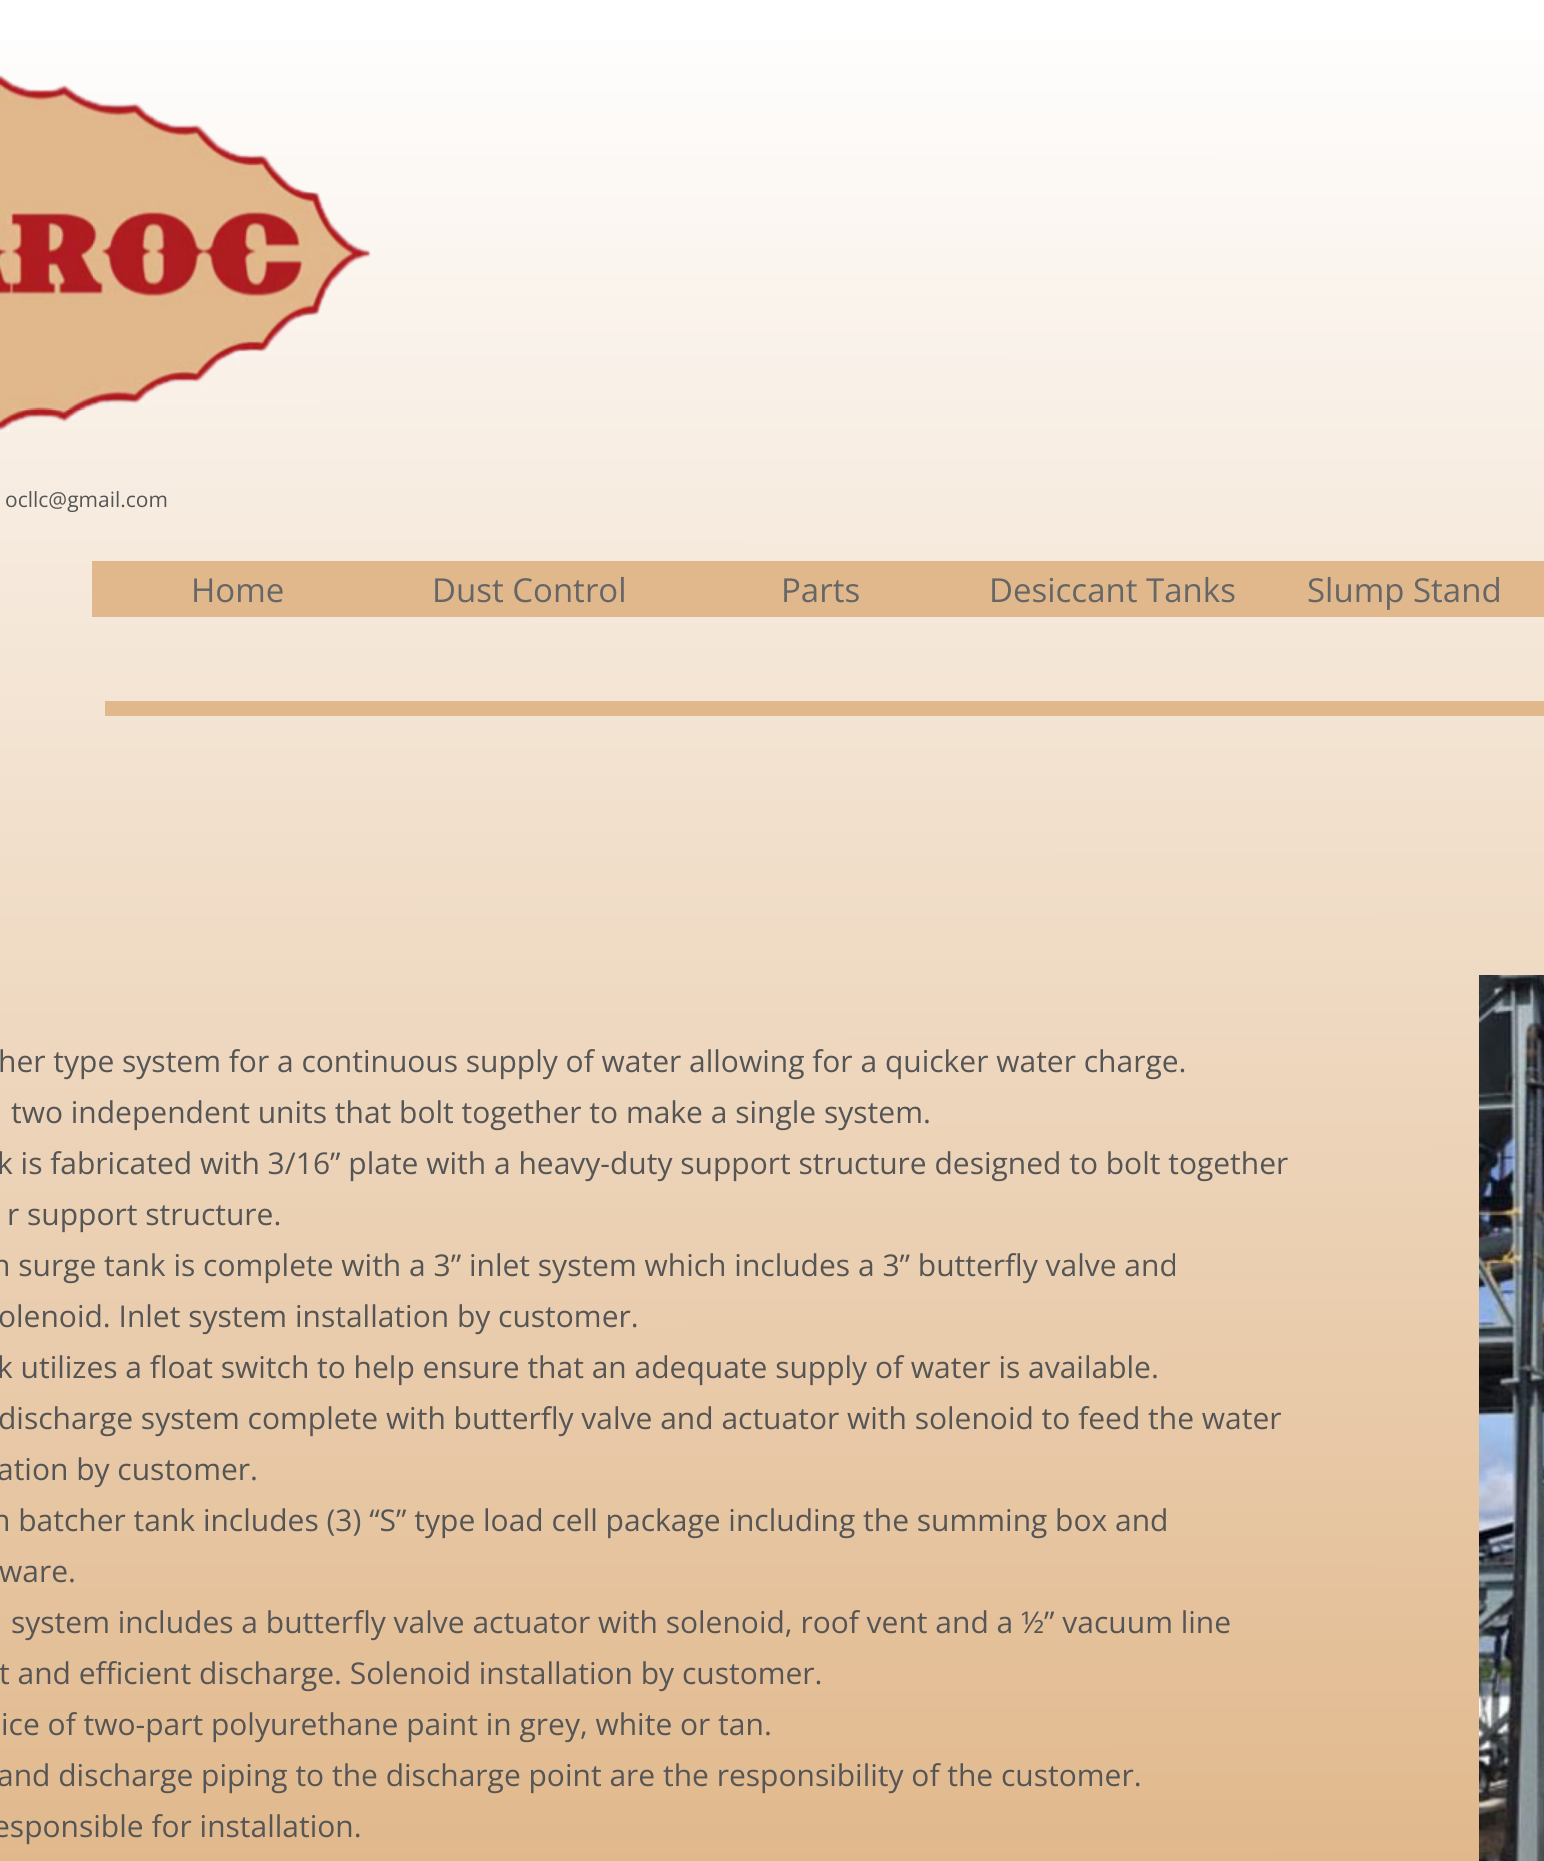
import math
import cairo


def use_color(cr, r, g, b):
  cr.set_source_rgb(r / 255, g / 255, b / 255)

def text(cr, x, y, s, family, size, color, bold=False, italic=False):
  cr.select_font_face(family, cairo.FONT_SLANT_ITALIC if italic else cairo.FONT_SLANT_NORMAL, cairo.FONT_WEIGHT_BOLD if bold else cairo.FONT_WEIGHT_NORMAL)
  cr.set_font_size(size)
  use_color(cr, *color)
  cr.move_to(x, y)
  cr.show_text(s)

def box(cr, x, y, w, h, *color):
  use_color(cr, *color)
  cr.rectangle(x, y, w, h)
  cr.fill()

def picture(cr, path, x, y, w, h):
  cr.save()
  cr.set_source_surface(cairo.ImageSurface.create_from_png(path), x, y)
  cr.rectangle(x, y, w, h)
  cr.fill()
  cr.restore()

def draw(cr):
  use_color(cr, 255, 255, 255)
  cr.paint()
  gradient = cairo.LinearGradient(772, 0, 773, 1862)
  gradient.add_color_stop_rgba(0, 1, 1, 1, 1)
  gradient.add_color_stop_rgba(1, 0.882, 0.722, 0.549, 1)
  cr.set_source(gradient)
  cr.rectangle(0, 40, 1544, 1821)
  cr.fill()
  picture(cr, "img_01.png", 0, 72, 373, 361)
  box(cr, 92, 561, 1452, 56, 225, 184, 140)
  box(cr, 105, 701, 1439, 15, 225, 184, 140)
  picture(cr, "img_02.png", 1479, 975, 65, 886)
  text(cr, 5, 507, "ocllc@gmail.com", "Open Sans", 21, (85, 85, 85))
  text(cr, 191, 602, "Home", "Open Sans", 33, (102, 102, 102))
  text(cr, 432, 602, "Dust Control", "Open Sans", 33, (102, 102, 102))
  text(cr, 781, 602, "Parts", "Open Sans", 33, (102, 102, 102))
  text(cr, 989, 602, "Desiccant Tanks", "Open Sans", 33, (102, 102, 102))
  text(cr, 1307, 602, "Slump Stand", "Open Sans", 33, (102, 102, 102))
  text(cr, -2, 1072, "her type system for a continuous supply of water allowing for a quicker water charge.", "Open Sans", 30, (85, 85, 85))
  text(cr, 11, 1123, "two independent units that bolt together to make a single system.", "Open Sans", 30, (85, 85, 85))
  text(cr, -3, 1174, "k is fabricated with 3/16” plate with a heavy-duty support structure designed to bolt together", "Open Sans", 30, (85, 85, 85))
  text(cr, 7, 1225, "r support structure.", "Open Sans", 30, (85, 85, 85))
  text(cr, -8, 1276, "n surge tank is complete with a 3” inlet system which includes a 3” butterfly valve and", "Open Sans", 30, (85, 85, 85))
  text(cr, -2, 1327, "olenoid. Inlet system installation by customer.", "Open Sans", 30, (85, 85, 85))
  text(cr, -3, 1378, "k utilizes a float switch to help ensure that an adequate supply of water is available.", "Open Sans", 30, (85, 85, 85))
  text(cr, -2, 1429, "discharge system complete with butterfly valve and actuator with solenoid to feed the water", "Open Sans", 30, (85, 85, 85))
  text(cr, -3, 1480, "ation by customer.", "Open Sans", 30, (85, 85, 85))
  text(cr, -8, 1531, "n batcher tank includes (3) “S” type load cell package including the summing box and", "Open Sans", 30, (85, 85, 85))
  text(cr, -1, 1582, "ware.", "Open Sans", 30, (85, 85, 85))
  text(cr, 11, 1633, "system includes a butterfly valve actuator with solenoid, roof vent and a ½” vacuum line", "Open Sans", 30, (85, 85, 85))
  text(cr, -1, 1684, "t and efficient discharge. Solenoid installation by customer.", "Open Sans", 30, (85, 85, 85))
  text(cr, 1, 1735, "ice of two-part polyurethane paint in grey, white or tan.", "Open Sans", 30, (85, 85, 85))
  text(cr, -3, 1786, "and discharge piping to the discharge point are the responsibility of the customer.", "Open Sans", 30, (85, 85, 85))
  text(cr, -7, 1837, "esponsible for installation.", "Open Sans", 30, (85, 85, 85))


surface = cairo.ImageSurface(cairo.FORMAT_RGB24, 1544, 1861)
cr = cairo.Context(surface)
options = cairo.FontOptions()
options.set_hint_metrics(cairo.HINT_METRICS_OFF)
options.set_hint_style(cairo.HINT_STYLE_NONE)
cr.set_font_options(options)
cr.set_miter_limit(4)
draw(cr)
surface.write_to_png("out.png")
